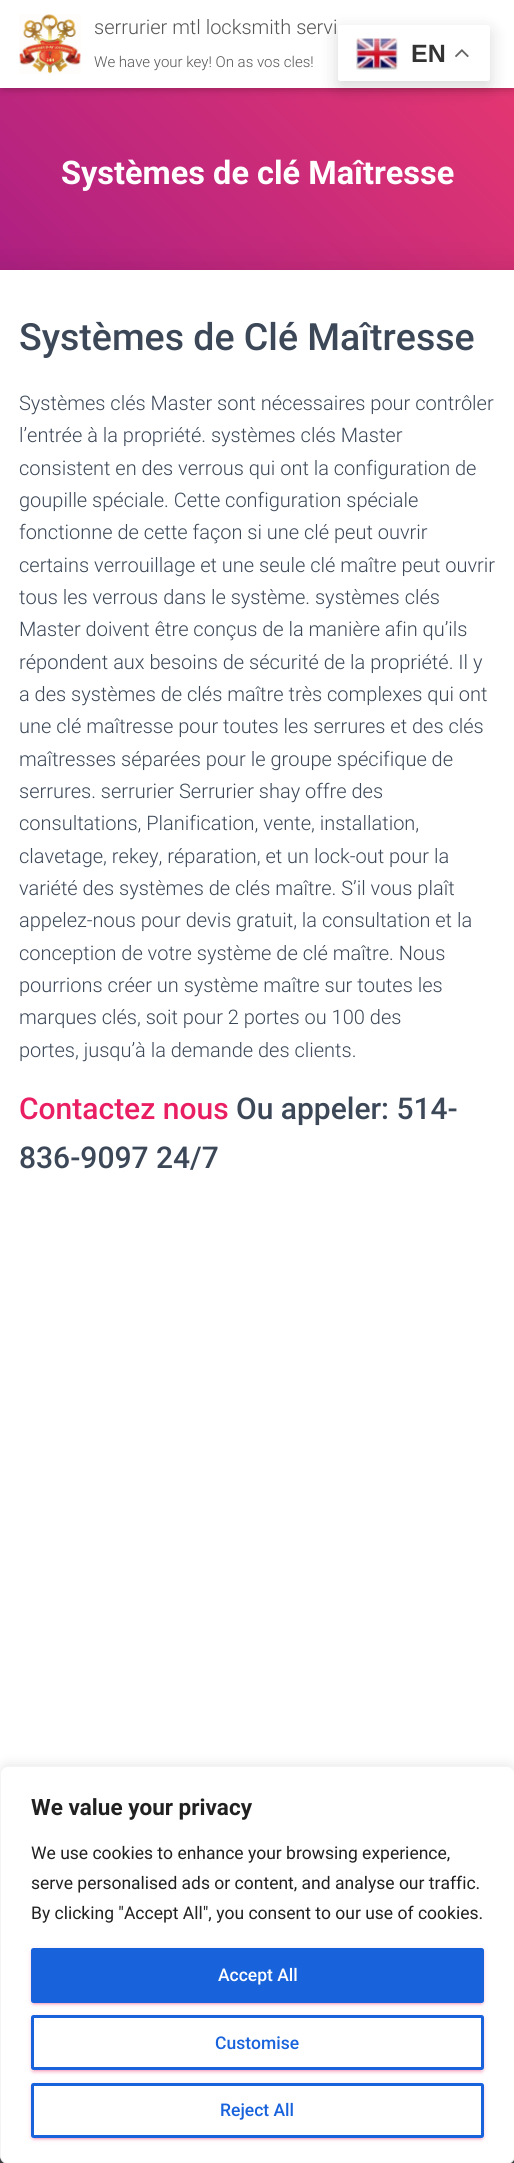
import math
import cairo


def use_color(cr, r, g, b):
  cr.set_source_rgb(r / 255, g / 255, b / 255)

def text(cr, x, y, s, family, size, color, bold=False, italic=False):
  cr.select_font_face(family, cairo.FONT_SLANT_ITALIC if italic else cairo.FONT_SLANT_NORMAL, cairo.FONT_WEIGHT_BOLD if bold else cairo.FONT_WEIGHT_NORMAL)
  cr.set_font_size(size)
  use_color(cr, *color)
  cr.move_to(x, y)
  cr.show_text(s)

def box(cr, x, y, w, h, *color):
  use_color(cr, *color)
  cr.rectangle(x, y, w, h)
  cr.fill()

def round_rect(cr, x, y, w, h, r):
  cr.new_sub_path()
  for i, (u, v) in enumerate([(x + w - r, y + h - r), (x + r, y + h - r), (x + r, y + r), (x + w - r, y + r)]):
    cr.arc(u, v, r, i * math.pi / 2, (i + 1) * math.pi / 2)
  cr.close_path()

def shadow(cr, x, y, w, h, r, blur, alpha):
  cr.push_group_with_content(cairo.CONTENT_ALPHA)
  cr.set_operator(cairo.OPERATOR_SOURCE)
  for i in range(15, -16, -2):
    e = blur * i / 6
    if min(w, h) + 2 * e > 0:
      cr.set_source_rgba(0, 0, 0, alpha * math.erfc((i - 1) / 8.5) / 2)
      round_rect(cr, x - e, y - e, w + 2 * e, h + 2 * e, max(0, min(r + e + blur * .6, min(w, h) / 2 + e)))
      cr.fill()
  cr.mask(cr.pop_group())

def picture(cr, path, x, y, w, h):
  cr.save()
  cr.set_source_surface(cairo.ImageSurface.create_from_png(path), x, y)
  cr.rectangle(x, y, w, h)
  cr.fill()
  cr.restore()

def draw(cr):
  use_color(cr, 50, 52, 55)
  cr.paint()
  gradient = cairo.LinearGradient(43, 388, 473, -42)
  gradient.add_color_stop_rgba(0, 0.659, 0.114, 0.518, 1)
  gradient.add_color_stop_rgba(1, 0.918, 0.224, 0.435, 1)
  cr.set_source(gradient)
  cr.rectangle(0, 88, 514, 182)
  cr.fill()
  use_color(cr, 0, 0, 0)
  shadow(cr, 3, 8, 510, 82, 0, 3, 0.1)
  shadow(cr, 0, 1, 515, 88, 0, 6, 0.12)
  shadow(cr, 8, 9, 500, 72, 0, 6, 0.42)
  box(cr, 0, 0, 514, 88, 255, 255, 255)
  picture(cr, "img_01.png", 19, 14, 62, 60)
  use_color(cr, 0, 0, 0)
  shadow(cr, -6, 271, 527, 1598, 0, 19, 0.12)
  box(cr, 0, 270, 514, 1504, 255, 255, 255)
  use_color(cr, 0, 0, 0)
  shadow(cr, 338, 31, 152, 57, 2.5, 9.5, 0.15)
  use_color(cr, 255, 255, 255)
  round_rect(cr, 338, 25, 152, 56, 2.5)
  cr.fill()
  picture(cr, "img_02.png", 356, 38, 42, 32)
  picture(cr, "img_03.png", 455, 49, 14, 9)
  use_color(cr, 172, 171, 171)
  shadow(cr, 0, 1765, 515, 398, 8, 6, 0.3)
  use_color(cr, 255, 255, 255)
  round_rect(cr, 0.5, 1766.5, 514, 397, 7.5)
  cr.fill_preserve()
  use_color(cr, 244, 244, 244)
  cr.set_line_width(1)
  cr.stroke()
  use_color(cr, 233, 30, 99)
  shadow(cr, 31, 1949, 453, 55, 2.5, 3, 0.12)
  shadow(cr, 34, 1954, 447, 50, 0, 0.5, 0.2)
  shadow(cr, 31, 1950, 453, 55, 2.5, 1, 0.14)
  use_color(cr, 24, 99, 220)
  round_rect(cr, 32.5, 1949.5, 450, 52, 1)
  cr.fill_preserve()
  cr.set_line_width(3)
  cr.stroke()
  cr.save()
  cr.set_fill_rule(cairo.FILL_RULE_EVEN_ODD)
  cr.new_path()
  cr.move_to(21, 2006)
  cr.line_to(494, 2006)
  cr.line_to(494, 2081)
  cr.line_to(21, 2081)
  cr.close_path()
  cr.move_to(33.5, 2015)
  cr.line_to(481.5, 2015)
  cr.curve_to(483, 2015, 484, 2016, 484, 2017.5)
  cr.line_to(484, 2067.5)
  cr.curve_to(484, 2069, 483, 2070, 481.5, 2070)
  cr.line_to(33.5, 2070)
  cr.curve_to(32, 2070, 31, 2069, 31, 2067.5)
  cr.line_to(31, 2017.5)
  cr.curve_to(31, 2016, 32, 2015, 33.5, 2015)
  cr.close_path()
  cr.clip()
  use_color(cr, 233, 30, 99)
  shadow(cr, 31, 2016, 453, 55, 2.5, 3, 0.12)
  cr.restore()
  cr.save()
  cr.rectangle(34, 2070, 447, 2)
  cr.clip()
  use_color(cr, 233, 30, 99)
  shadow(cr, 34, 2021, 447, 50, 0, 0.5, 0.2)
  cr.restore()
  cr.save()
  cr.set_fill_rule(cairo.FILL_RULE_EVEN_ODD)
  cr.new_path()
  cr.move_to(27, 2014)
  cr.line_to(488, 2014)
  cr.line_to(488, 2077)
  cr.line_to(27, 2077)
  cr.close_path()
  cr.move_to(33.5, 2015)
  cr.line_to(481.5, 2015)
  cr.curve_to(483, 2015, 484, 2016, 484, 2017.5)
  cr.line_to(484, 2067.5)
  cr.curve_to(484, 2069, 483, 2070, 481.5, 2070)
  cr.line_to(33.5, 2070)
  cr.curve_to(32, 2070, 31, 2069, 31, 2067.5)
  cr.line_to(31, 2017.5)
  cr.curve_to(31, 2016, 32, 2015, 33.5, 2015)
  cr.close_path()
  cr.clip()
  use_color(cr, 233, 30, 99)
  shadow(cr, 31, 2018, 453, 55, 2.5, 1, 0.14)
  cr.restore()
  round_rect(cr, 32.5, 2016.5, 450, 52, 1)
  cr.stroke()
  cr.save()
  cr.set_fill_rule(cairo.FILL_RULE_EVEN_ODD)
  cr.new_path()
  cr.move_to(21, 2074)
  cr.line_to(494, 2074)
  cr.line_to(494, 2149)
  cr.line_to(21, 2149)
  cr.close_path()
  cr.move_to(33.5, 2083)
  cr.line_to(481.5, 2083)
  cr.curve_to(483, 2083, 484, 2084, 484, 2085.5)
  cr.line_to(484, 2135.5)
  cr.curve_to(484, 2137, 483, 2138, 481.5, 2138)
  cr.line_to(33.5, 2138)
  cr.curve_to(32, 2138, 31, 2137, 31, 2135.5)
  cr.line_to(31, 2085.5)
  cr.curve_to(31, 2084, 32, 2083, 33.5, 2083)
  cr.close_path()
  cr.clip()
  use_color(cr, 233, 30, 99)
  shadow(cr, 31, 2084, 453, 55, 2.5, 3, 0.12)
  cr.restore()
  cr.save()
  cr.rectangle(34, 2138, 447, 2)
  cr.clip()
  use_color(cr, 233, 30, 99)
  shadow(cr, 34, 2089, 447, 50, 0, 0.5, 0.2)
  cr.restore()
  cr.save()
  cr.set_fill_rule(cairo.FILL_RULE_EVEN_ODD)
  cr.new_path()
  cr.move_to(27, 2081)
  cr.line_to(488, 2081)
  cr.line_to(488, 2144)
  cr.line_to(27, 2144)
  cr.close_path()
  cr.move_to(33.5, 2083)
  cr.line_to(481.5, 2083)
  cr.curve_to(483, 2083, 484, 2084, 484, 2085.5)
  cr.line_to(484, 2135.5)
  cr.curve_to(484, 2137, 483, 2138, 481.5, 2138)
  cr.line_to(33.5, 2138)
  cr.curve_to(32, 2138, 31, 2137, 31, 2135.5)
  cr.line_to(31, 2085.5)
  cr.curve_to(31, 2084, 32, 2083, 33.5, 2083)
  cr.close_path()
  cr.clip()
  use_color(cr, 233, 30, 99)
  shadow(cr, 31, 2085, 453, 55, 2.5, 1, 0.14)
  cr.restore()
  round_rect(cr, 32.5, 2084.5, 450, 52, 1)
  cr.stroke()
  text(cr, 94, 34, "serrurier mtl locksmith servi", "Roboto Light", 20, (85, 85, 85))
  text(cr, 94, 67, "We have your key! On as vos cles!", "Roboto Light", 15, (85, 85, 85))
  text(cr, 61, 184, "Systèmes de clé Maîtresse", "Roboto", 32.5, (255, 255, 255), bold=True)
  text(cr, 19, 350, "Systèmes de Clé Maîtresse", "Roboto Medium", 37.5, (60, 72, 88))
  text(cr, 19, 410, "Systèmes clés Master sont nécessaires pour contrôler", "Roboto Light", 20, (60, 72, 88))
  text(cr, 19, 442, "l’entrée à la propriété. systèmes clés Master", "Roboto Light", 20, (60, 72, 88))
  text(cr, 19, 475, "consistent en des verrous qui ont la configuration de", "Roboto Light", 20, (60, 72, 88))
  text(cr, 19, 507, "goupille spéciale. Cette configuration spéciale", "Roboto Light", 20, (60, 72, 88))
  text(cr, 19, 539, "fonctionne de cette façon si une clé peut ouvrir", "Roboto Light", 20, (60, 72, 88))
  text(cr, 19, 572, "certains verrouillage et une seule clé maître peut ouvrir", "Roboto Light", 20, (60, 72, 88))
  text(cr, 19, 604, "tous les verrous dans le système. systèmes clés", "Roboto Light", 20, (60, 72, 88))
  text(cr, 19, 636, "Master doivent être conçus de la manière afin qu’ils", "Roboto Light", 20, (60, 72, 88))
  text(cr, 19, 669, "répondent aux besoins de sécurité de la propriété. Il y", "Roboto Light", 20, (60, 72, 88))
  text(cr, 19, 701, "a des systèmes de clés maître très complexes qui ont", "Roboto Light", 20, (60, 72, 88))
  text(cr, 19, 733, "une clé maîtresse pour toutes les serrures et des clés", "Roboto Light", 20, (60, 72, 88))
  text(cr, 19, 766, "maîtresses séparées pour le groupe spécifique de", "Roboto Light", 20, (60, 72, 88))
  text(cr, 19, 798, "serrures. serrurier Serrurier shay offre des", "Roboto Light", 20, (60, 72, 88))
  text(cr, 19, 830, "consultations, Planification, vente, installation,", "Roboto Light", 20, (60, 72, 88))
  text(cr, 19, 863, "clavetage, rekey, réparation, et un lock-out pour la", "Roboto Light", 20, (60, 72, 88))
  text(cr, 19, 895, "variété des systèmes de clés maître. S’il vous plaît", "Roboto Light", 20, (60, 72, 88))
  text(cr, 19, 927, "appelez-nous pour devis gratuit, la consultation et la", "Roboto Light", 20, (60, 72, 88))
  text(cr, 19, 960, "conception de votre système de clé maître. Nous", "Roboto Light", 20, (60, 72, 88))
  text(cr, 19, 992, "pourrions créer un système maître sur toutes les", "Roboto Light", 20, (60, 72, 88))
  text(cr, 19, 1024, "marques clés, soit pour 2 portes ou 100 des", "Roboto Light", 20, (60, 72, 88))
  text(cr, 19, 1057, "portes, jusqu’à la demande des clients.", "Roboto Light", 20, (60, 72, 88))
  text(cr, 19, 1119, "Contactez nous", "Roboto Medium", 30, (233, 30, 99))
  text(cr, 236, 1119, "Ou appeler: 514-", "Roboto Medium", 30, (60, 72, 88))
  text(cr, 19, 1168, "836-9097 24/7", "Roboto Medium", 30, (60, 72, 88))
  text(cr, 411, 62, "EN", "Liberation Sans", 25, (51, 51, 51), bold=True)
  text(cr, 31, 1815, "We value your privacy", "Roboto", 22.5, (33, 33, 33), bold=True)
  text(cr, 31, 1859, "We use cookies to enhance your browsing experience,", "Roboto", 17.5, (33, 33, 33))
  text(cr, 31, 1889, "serve personalised ads or content, and analyse our traffic.", "Roboto", 17.5, (33, 33, 33))
  text(cr, 31, 1919, "By clicking \"Accept All\", you consent to our use of cookies.", "Roboto", 17.5, (33, 33, 33))
  text(cr, 218, 1981, "Accept All", "Roboto Medium", 17.5, (255, 255, 255))
  text(cr, 215, 2049, "Customise", "Roboto Medium", 17.5, (24, 99, 220))
  text(cr, 220, 2116, "Reject All", "Roboto Medium", 17.5, (24, 99, 220))


surface = cairo.ImageSurface(cairo.FORMAT_RGB24, 514, 2163)
cr = cairo.Context(surface)
options = cairo.FontOptions()
options.set_hint_metrics(cairo.HINT_METRICS_OFF)
options.set_hint_style(cairo.HINT_STYLE_NONE)
cr.set_font_options(options)
cr.set_miter_limit(4)
draw(cr)
surface.write_to_png("out.png")
